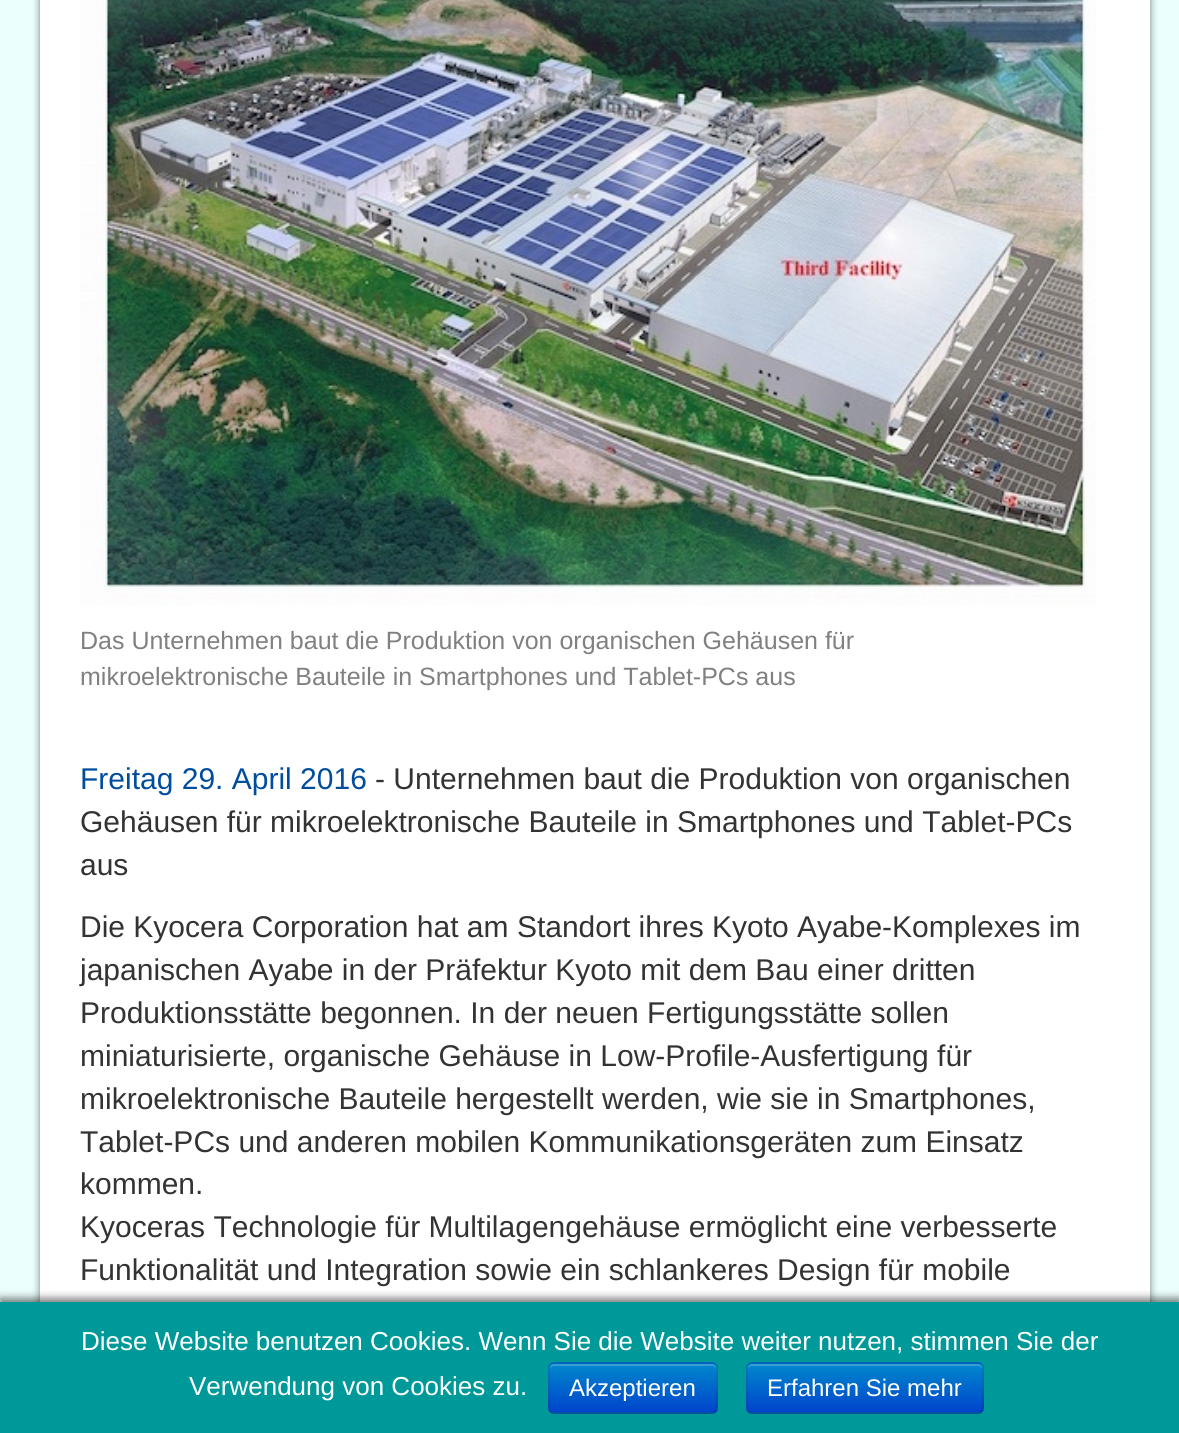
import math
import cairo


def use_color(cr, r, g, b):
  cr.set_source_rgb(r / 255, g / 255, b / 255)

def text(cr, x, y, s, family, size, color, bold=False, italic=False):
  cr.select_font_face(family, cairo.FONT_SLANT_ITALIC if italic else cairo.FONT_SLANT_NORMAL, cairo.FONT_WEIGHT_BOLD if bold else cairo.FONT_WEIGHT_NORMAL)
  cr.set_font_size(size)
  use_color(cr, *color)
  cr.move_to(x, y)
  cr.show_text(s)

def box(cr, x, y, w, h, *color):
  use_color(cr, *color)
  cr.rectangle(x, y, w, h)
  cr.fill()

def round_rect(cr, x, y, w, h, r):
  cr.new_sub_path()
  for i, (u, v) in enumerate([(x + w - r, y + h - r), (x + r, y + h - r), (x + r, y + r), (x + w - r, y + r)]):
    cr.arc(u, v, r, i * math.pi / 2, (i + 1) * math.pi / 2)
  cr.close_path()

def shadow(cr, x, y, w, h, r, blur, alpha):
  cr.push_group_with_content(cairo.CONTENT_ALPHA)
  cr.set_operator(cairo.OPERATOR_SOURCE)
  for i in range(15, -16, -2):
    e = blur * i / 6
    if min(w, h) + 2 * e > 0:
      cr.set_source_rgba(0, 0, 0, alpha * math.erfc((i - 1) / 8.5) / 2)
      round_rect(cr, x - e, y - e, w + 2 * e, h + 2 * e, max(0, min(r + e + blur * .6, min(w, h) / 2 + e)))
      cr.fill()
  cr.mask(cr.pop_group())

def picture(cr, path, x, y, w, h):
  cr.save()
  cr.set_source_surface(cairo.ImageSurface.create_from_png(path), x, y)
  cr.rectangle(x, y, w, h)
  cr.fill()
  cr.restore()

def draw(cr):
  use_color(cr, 235, 255, 252)
  cr.paint()
  use_color(cr, 0, 0, 0)
  shadow(cr, 40, -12, 1110, 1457, 0, 4, 0.5)
  box(cr, 40, 0, 1110, 1302, 255, 255, 255)
  picture(cr, "img_01.png", 80, 0, 1016, 606)
  use_color(cr, 0, 0, 0)
  shadow(cr, 0, 1298, 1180, 132, 0, 4, 0.5)
  box(cr, 0, 1302, 1179, 131, 0, 153, 153)
  use_color(cr, 0, 109, 204)
  round_rect(cr, 548, 1362, 170, 52, 6)
  cr.fill()
  cr.save()
  round_rect(cr, 548, 1362, 170, 52, 6)
  cr.clip()
  gradient = cairo.LinearGradient(633, 1364, 633, 1412)
  gradient.add_color_stop_rgba(0, 0, 0.533, 0.8, 1)
  gradient.add_color_stop_rgba(1, 0, 0.267, 0.8, 1)
  cr.set_source(gradient)
  cr.rectangle(548, 1364, 170, 48)
  cr.fill()
  cr.restore()
  cr.set_source_rgba(1, 1, 1, 0.2)
  cr.new_path()
  cr.move_to(554, 1366)
  cr.line_to(712, 1366)
  cr.curve_to(714, 1366, 716, 1368, 716, 1370)
  cr.line_to(716, 1368)
  cr.curve_to(716, 1366, 714, 1364, 712, 1364)
  cr.line_to(554, 1364)
  cr.curve_to(552, 1364, 550, 1366, 550, 1368)
  cr.line_to(550, 1370)
  cr.curve_to(550, 1368, 552, 1366, 554, 1366)
  cr.close_path()
  cr.fill()
  cr.new_path()
  cr.move_to(715.5, 1411.5)
  cr.curve_to(714.5, 1412.5, 713.5, 1413, 712, 1413)
  cr.line_to(554, 1413)
  cr.curve_to(552.5, 1413, 551.5, 1412.5, 550.5, 1411.5)
  cr.set_source_rgba(0, 0, 0, 0.25)
  cr.stroke()
  cr.new_path()
  cr.move_to(550.5, 1411.5)
  cr.curve_to(549.5, 1410.5, 549, 1409.5, 549, 1408)
  cr.line_to(549, 1368)
  cr.curve_to(549, 1366.5, 549.5, 1365.5, 550.5, 1364.5)
  cr.curve_to(551.5, 1363.5, 552.5, 1363, 554, 1363)
  cr.line_to(712, 1363)
  cr.curve_to(713.5, 1363, 714.5, 1363.5, 715.5, 1364.5)
  cr.curve_to(716.5, 1365.5, 717, 1366.5, 717, 1368)
  cr.line_to(717, 1408)
  cr.curve_to(717, 1409.5, 716.5, 1410.5, 715.5, 1411.5)
  cr.set_source_rgba(0, 0, 0, 0.1)
  cr.stroke()
  use_color(cr, 0, 109, 204)
  round_rect(cr, 746, 1362, 238, 52, 6)
  cr.fill()
  cr.save()
  round_rect(cr, 746, 1362, 238, 52, 6)
  cr.clip()
  gradient = cairo.LinearGradient(865, 1364, 865, 1412)
  gradient.add_color_stop_rgba(0, 0, 0.533, 0.8, 1)
  gradient.add_color_stop_rgba(1, 0, 0.267, 0.8, 1)
  cr.set_source(gradient)
  cr.rectangle(746, 1364, 238, 48)
  cr.fill()
  cr.restore()
  cr.set_source_rgba(1, 1, 1, 0.2)
  cr.new_path()
  cr.move_to(752, 1366)
  cr.line_to(978, 1366)
  cr.curve_to(980, 1366, 982, 1368, 982, 1370)
  cr.line_to(982, 1368)
  cr.curve_to(982, 1366, 980, 1364, 978, 1364)
  cr.line_to(752, 1364)
  cr.curve_to(750, 1364, 748, 1366, 748, 1368)
  cr.line_to(748, 1370)
  cr.curve_to(748, 1368, 750, 1366, 752, 1366)
  cr.close_path()
  cr.fill()
  cr.new_path()
  cr.move_to(981.5, 1411.5)
  cr.curve_to(980.5, 1412.5, 979.5, 1413, 978, 1413)
  cr.line_to(752, 1413)
  cr.curve_to(750.5, 1413, 749.5, 1412.5, 748.5, 1411.5)
  cr.set_source_rgba(0, 0, 0, 0.25)
  cr.stroke()
  cr.new_path()
  cr.move_to(748.5, 1411.5)
  cr.curve_to(747.5, 1410.5, 747, 1409.5, 747, 1408)
  cr.line_to(747, 1368)
  cr.curve_to(747, 1366.5, 747.5, 1365.5, 748.5, 1364.5)
  cr.curve_to(749.5, 1363.5, 750.5, 1363, 752, 1363)
  cr.line_to(978, 1363)
  cr.curve_to(979.5, 1363, 980.5, 1363.5, 981.5, 1364.5)
  cr.curve_to(982.5, 1365.5, 983, 1366.5, 983, 1368)
  cr.line_to(983, 1408)
  cr.curve_to(983, 1409.5, 982.5, 1410.5, 981.5, 1411.5)
  cr.set_source_rgba(0, 0, 0, 0.1)
  cr.stroke()
  text(cr, 80, 649, "Das Unternehmen baut die Produktion von organischen Gehäusen für", "Liberation Sans", 25, (128, 128, 128))
  text(cr, 80, 685, "mikroelektronische Bauteile in Smartphones und Tablet-PCs aus", "Liberation Sans", 25, (128, 128, 128))
  text(cr, 80, 789, "Freitag 29. April 2016", "Liberation Sans", 30, (0, 77, 158))
  text(cr, 375, 789, "- Unternehmen baut die Produktion von organischen", "Liberation Sans", 30, (51, 51, 51))
  text(cr, 80, 832, "Gehäusen für mikroelektronische Bauteile in Smartphones und Tablet-PCs", "Liberation Sans", 30, (51, 51, 51))
  text(cr, 80, 875, "aus", "Liberation Sans", 30, (51, 51, 51))
  text(cr, 80, 937, "Die Kyocera Corporation hat am Standort ihres Kyoto Ayabe-Komplexes im", "Liberation Sans", 30, (51, 51, 51))
  text(cr, 80, 980, "japanischen Ayabe in der Präfektur Kyoto mit dem Bau einer dritten", "Liberation Sans", 30, (51, 51, 51))
  text(cr, 80, 1023, "Produktionsstätte begonnen. In der neuen Fertigungsstätte sollen", "Liberation Sans", 30, (51, 51, 51))
  text(cr, 80, 1066, "miniaturisierte, organische Gehäuse in Low-Profile-Ausfertigung für", "Liberation Sans", 30, (51, 51, 51))
  text(cr, 80, 1109, "mikroelektronische Bauteile hergestellt werden, wie sie in Smartphones,", "Liberation Sans", 30, (51, 51, 51))
  text(cr, 80, 1152, "Tablet-PCs und anderen mobilen Kommunikationsgeräten zum Einsatz", "Liberation Sans", 30, (51, 51, 51))
  text(cr, 80, 1194, "kommen.", "Liberation Sans", 30, (51, 51, 51))
  text(cr, 80, 1237, "Kyoceras Technologie für Multilagengehäuse ermöglicht eine verbesserte", "Liberation Sans", 30, (51, 51, 51))
  text(cr, 80, 1280, "Funktionalität und Integration sowie ein schlankeres Design für mobile", "Liberation Sans", 30, (51, 51, 51))
  text(cr, 81, 1350, "Diese Website benutzen Cookies. Wenn Sie die Website weiter nutzen, stimmen Sie der", "Liberation Sans", 26, (255, 255, 255))
  text(cr, 189, 1395, "Verwendung von Cookies zu.", "Liberation Sans", 26, (255, 255, 255))
  text(cr, 569, 1396, "Akzeptieren", "Liberation Sans", 24, (255, 255, 255))
  text(cr, 767, 1396, "Erfahren Sie mehr", "Liberation Sans", 24, (255, 255, 255))


surface = cairo.ImageSurface(cairo.FORMAT_RGB24, 1179, 1433)
cr = cairo.Context(surface)
options = cairo.FontOptions()
options.set_hint_metrics(cairo.HINT_METRICS_OFF)
options.set_hint_style(cairo.HINT_STYLE_NONE)
cr.set_font_options(options)
cr.set_miter_limit(4)
draw(cr)
surface.write_to_png("out.png")
